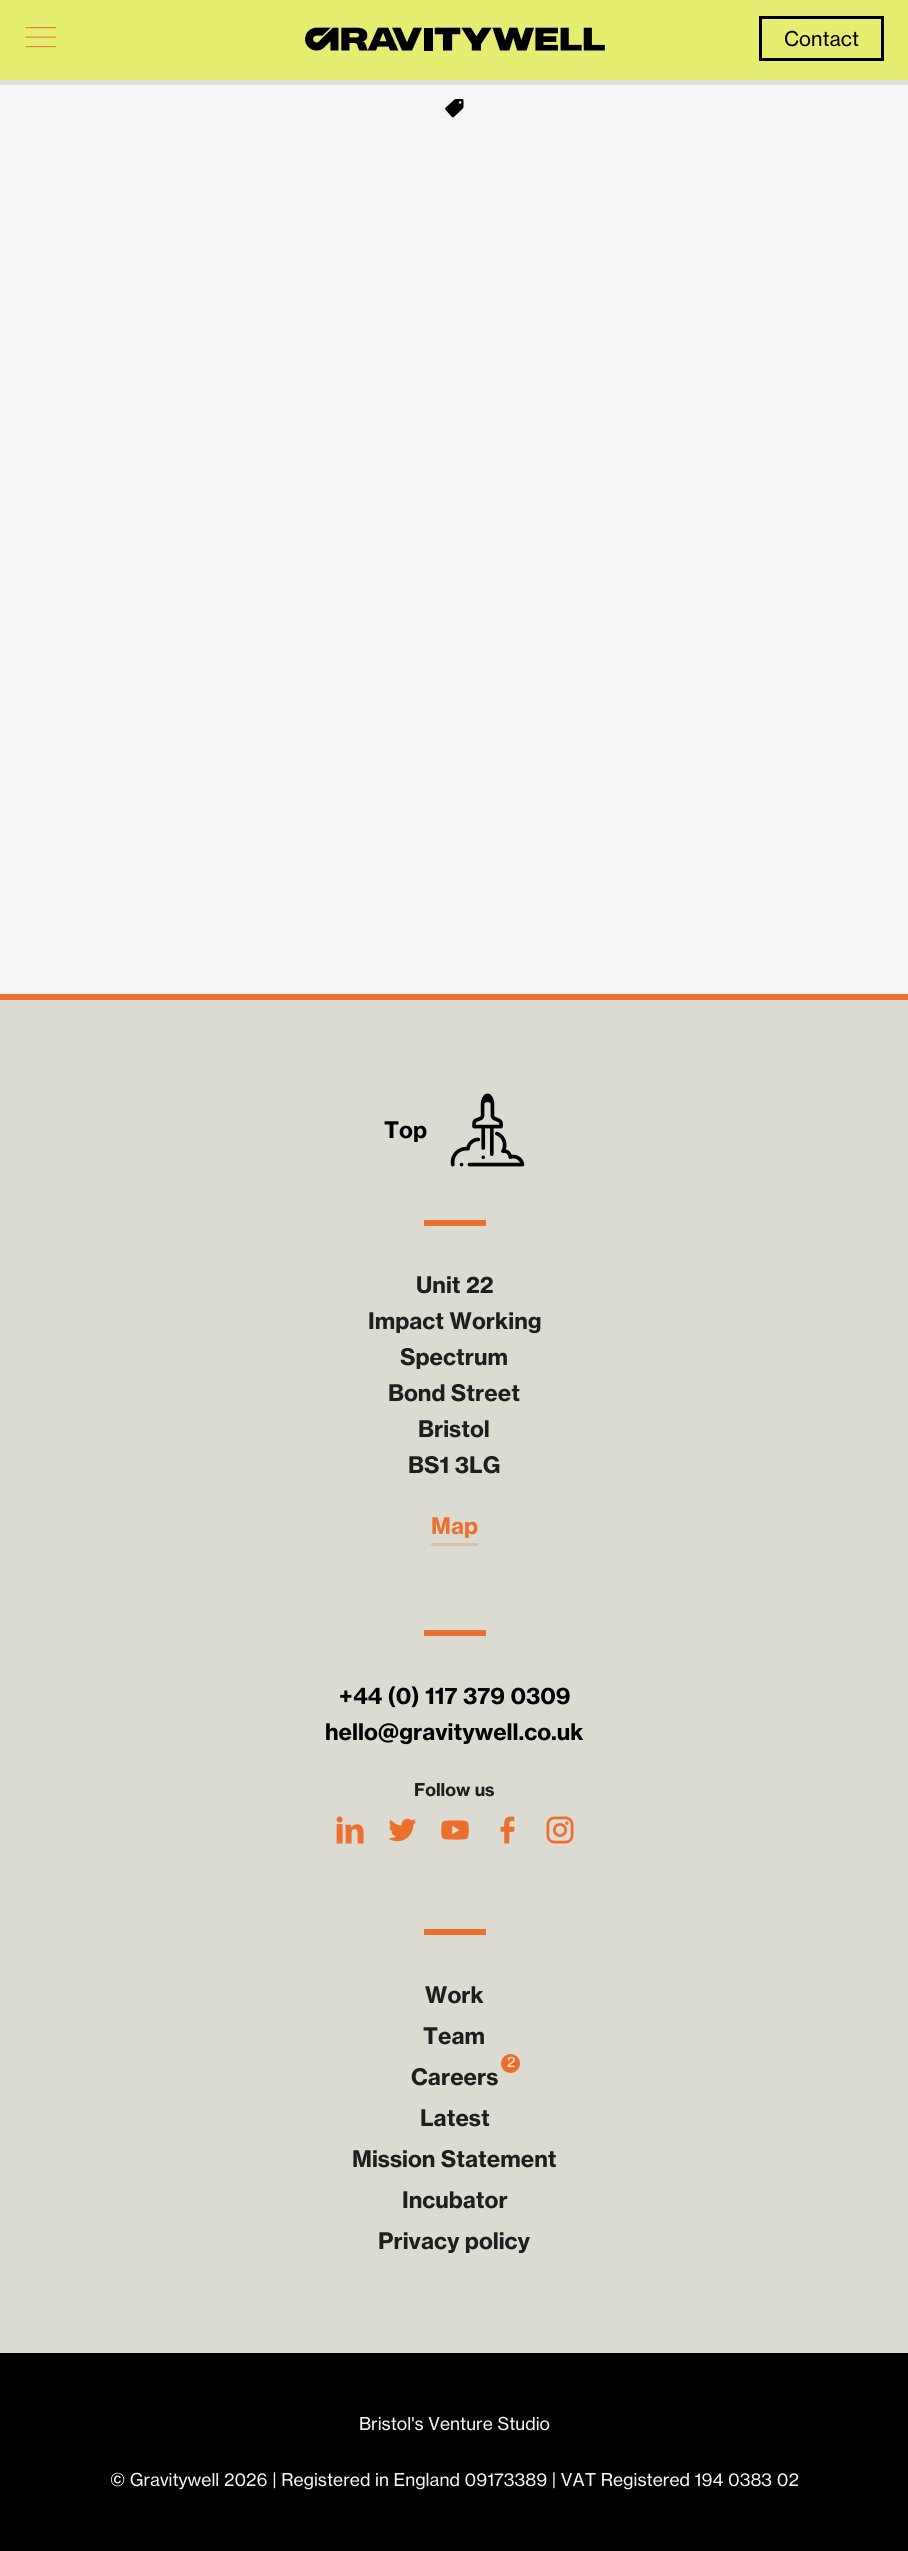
import math
import cairo


def use_color(cr, r, g, b):
  cr.set_source_rgb(r / 255, g / 255, b / 255)

def text(cr, x, y, s, family, size, color, bold=False, italic=False):
  cr.select_font_face(family, cairo.FONT_SLANT_ITALIC if italic else cairo.FONT_SLANT_NORMAL, cairo.FONT_WEIGHT_BOLD if bold else cairo.FONT_WEIGHT_NORMAL)
  cr.set_font_size(size)
  use_color(cr, *color)
  cr.move_to(x, y)
  cr.show_text(s)

def box(cr, x, y, w, h, *color):
  use_color(cr, *color)
  cr.rectangle(x, y, w, h)
  cr.fill()

def round_rect(cr, x, y, w, h, r):
  cr.new_sub_path()
  for i, (u, v) in enumerate([(x + w - r, y + h - r), (x + r, y + h - r), (x + r, y + r), (x + w - r, y + r)]):
    cr.arc(u, v, r, i * math.pi / 2, (i + 1) * math.pi / 2)
  cr.close_path()

def shadow(cr, x, y, w, h, r, blur, alpha):
  cr.push_group_with_content(cairo.CONTENT_ALPHA)
  cr.set_operator(cairo.OPERATOR_SOURCE)
  for i in range(15, -16, -2):
    e = blur * i / 6
    if min(w, h) + 2 * e > 0:
      cr.set_source_rgba(0, 0, 0, alpha * math.erfc((i - 1) / 8.5) / 2)
      round_rect(cr, x - e, y - e, w + 2 * e, h + 2 * e, max(0, min(r + e + blur * .6, min(w, h) / 2 + e)))
      cr.fill()
  cr.mask(cr.pop_group())

def picture(cr, path, x, y, w, h):
  cr.save()
  cr.set_source_surface(cairo.ImageSurface.create_from_png(path), x, y)
  cr.rectangle(x, y, w, h)
  cr.fill()
  cr.restore()

def draw(cr):
  use_color(cr, 247, 246, 246)
  cr.paint()
  use_color(cr, 0, 0, 0)
  shadow(cr, -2, -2, 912, 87, 0, 0.5, 0.1)
  box(cr, 0, 0, 908, 80, 230, 238, 114)
  picture(cr, "img_01.png", 25, 27, 31, 21)
  picture(cr, "img_02.png", 305, 27, 300, 24)
  picture(cr, "img_03.png", 305, 27, 300, 24)
  cr.rectangle(760.5, 17.5, 122, 42)
  use_color(cr, 0, 0, 0)
  cr.set_line_width(3)
  cr.stroke()
  picture(cr, "img_04.png", 445, 98, 19, 20)
  box(cr, 0, 1000, 908, 1353, 219, 219, 210)
  box(cr, 0, 994, 908, 6, 237, 111, 45)
  picture(cr, "img_05.png", 450, 1093, 75, 74)
  box(cr, 424, 1220, 62, 6, 237, 111, 45)
  box(cr, 431, 1543, 47, 3, 224, 192, 169)
  box(cr, 424, 1630, 62, 6, 237, 111, 45)
  picture(cr, "img_06.png", 336, 1816, 28, 28)
  picture(cr, "img_07.png", 389, 1818, 27, 24)
  picture(cr, "img_08.png", 441, 1820, 28, 20)
  picture(cr, "img_09.png", 500, 1816, 15, 28)
  picture(cr, "img_10.png", 546, 1816, 28, 28)
  box(cr, 424, 1929, 62, 6, 237, 111, 45)
  cr.arc(510.5, 2063.5, 9.5, 0, 2 * math.pi)
  cr.fill()
  box(cr, 0, 2353, 908, 198, 0, 0, 0)
  text(cr, 784, 46, "Contact", "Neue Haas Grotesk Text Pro", 20, (0, 0, 0))
  text(cr, 384, 1138, "Top", "Neue Haas Grotesk Text Pro", 22.5, (0, 0, 0), bold=True)
  text(cr, 416, 1293, "Unit 22", "Neue Haas Grotesk Text Pro", 22.5, (31, 30, 30), bold=True)
  text(cr, 368, 1329, "Impact Working", "Neue Haas Grotesk Text Pro", 22.5, (31, 30, 30), bold=True)
  text(cr, 400, 1365, "Spectrum", "Neue Haas Grotesk Text Pro", 22.5, (31, 30, 30), bold=True)
  text(cr, 388, 1401, "Bond Street", "Neue Haas Grotesk Text Pro", 22.5, (31, 30, 30), bold=True)
  text(cr, 418, 1437, "Bristol", "Neue Haas Grotesk Text Pro", 22.5, (31, 30, 30), bold=True)
  text(cr, 408, 1473, "BS1 3LG", "Neue Haas Grotesk Text Pro", 22.5, (31, 30, 30), bold=True)
  text(cr, 431, 1534, "Map", "Neue Haas Grotesk Text Pro", 22.5, (237, 111, 45), bold=True)
  text(cr, 339, 1704, "+44 (0) 117 379 0309", "Neue Haas Grotesk Text Pro", 22.5, (0, 0, 0), bold=True)
  text(cr, 325, 1740, "hello@gravitywell.co.uk", "Neue Haas Grotesk Text Pro", 22.5, (0, 0, 0), bold=True)
  text(cr, 414, 1796, "Follow us", "Neue Haas Grotesk Text Pro", 17.5, (31, 30, 30), bold=True)
  text(cr, 425, 2003, "Work", "Neue Haas Grotesk Text Pro", 22.5, (31, 30, 30), bold=True)
  text(cr, 423, 2044, "Team", "Neue Haas Grotesk Text Pro", 22.5, (31, 30, 30), bold=True)
  text(cr, 507, 2067, "2", "Neue Haas Grotesk Text Pro", 14, (249, 244, 240))
  text(cr, 411, 2085, "Careers", "Neue Haas Grotesk Text Pro", 22.5, (31, 30, 30), bold=True)
  text(cr, 420, 2126, "Latest", "Neue Haas Grotesk Text Pro", 22.5, (31, 30, 30), bold=True)
  text(cr, 352, 2167, "Mission Statement", "Neue Haas Grotesk Text Pro", 22.5, (31, 30, 30), bold=True)
  text(cr, 402, 2208, "Incubator", "Neue Haas Grotesk Text Pro", 22.5, (31, 30, 30), bold=True)
  text(cr, 378, 2249, "Privacy policy", "Neue Haas Grotesk Text Pro", 22.5, (31, 30, 30), bold=True)
  text(cr, 359, 2430, "Bristol's Venture Studio", "Neue Haas Grotesk Text Pro", 17.5, (249, 244, 240))
  text(cr, 110, 2486, "© Gravitywell 2026 | Registered in England 09173389 | VAT Registered 194 0383 02", "Neue Haas Grotesk Text Pro", 17.5, (249, 244, 240))


surface = cairo.ImageSurface(cairo.FORMAT_RGB24, 908, 2551)
cr = cairo.Context(surface)
options = cairo.FontOptions()
options.set_hint_metrics(cairo.HINT_METRICS_OFF)
options.set_hint_style(cairo.HINT_STYLE_NONE)
cr.set_font_options(options)
cr.set_miter_limit(4)
draw(cr)
surface.write_to_png("out.png")
